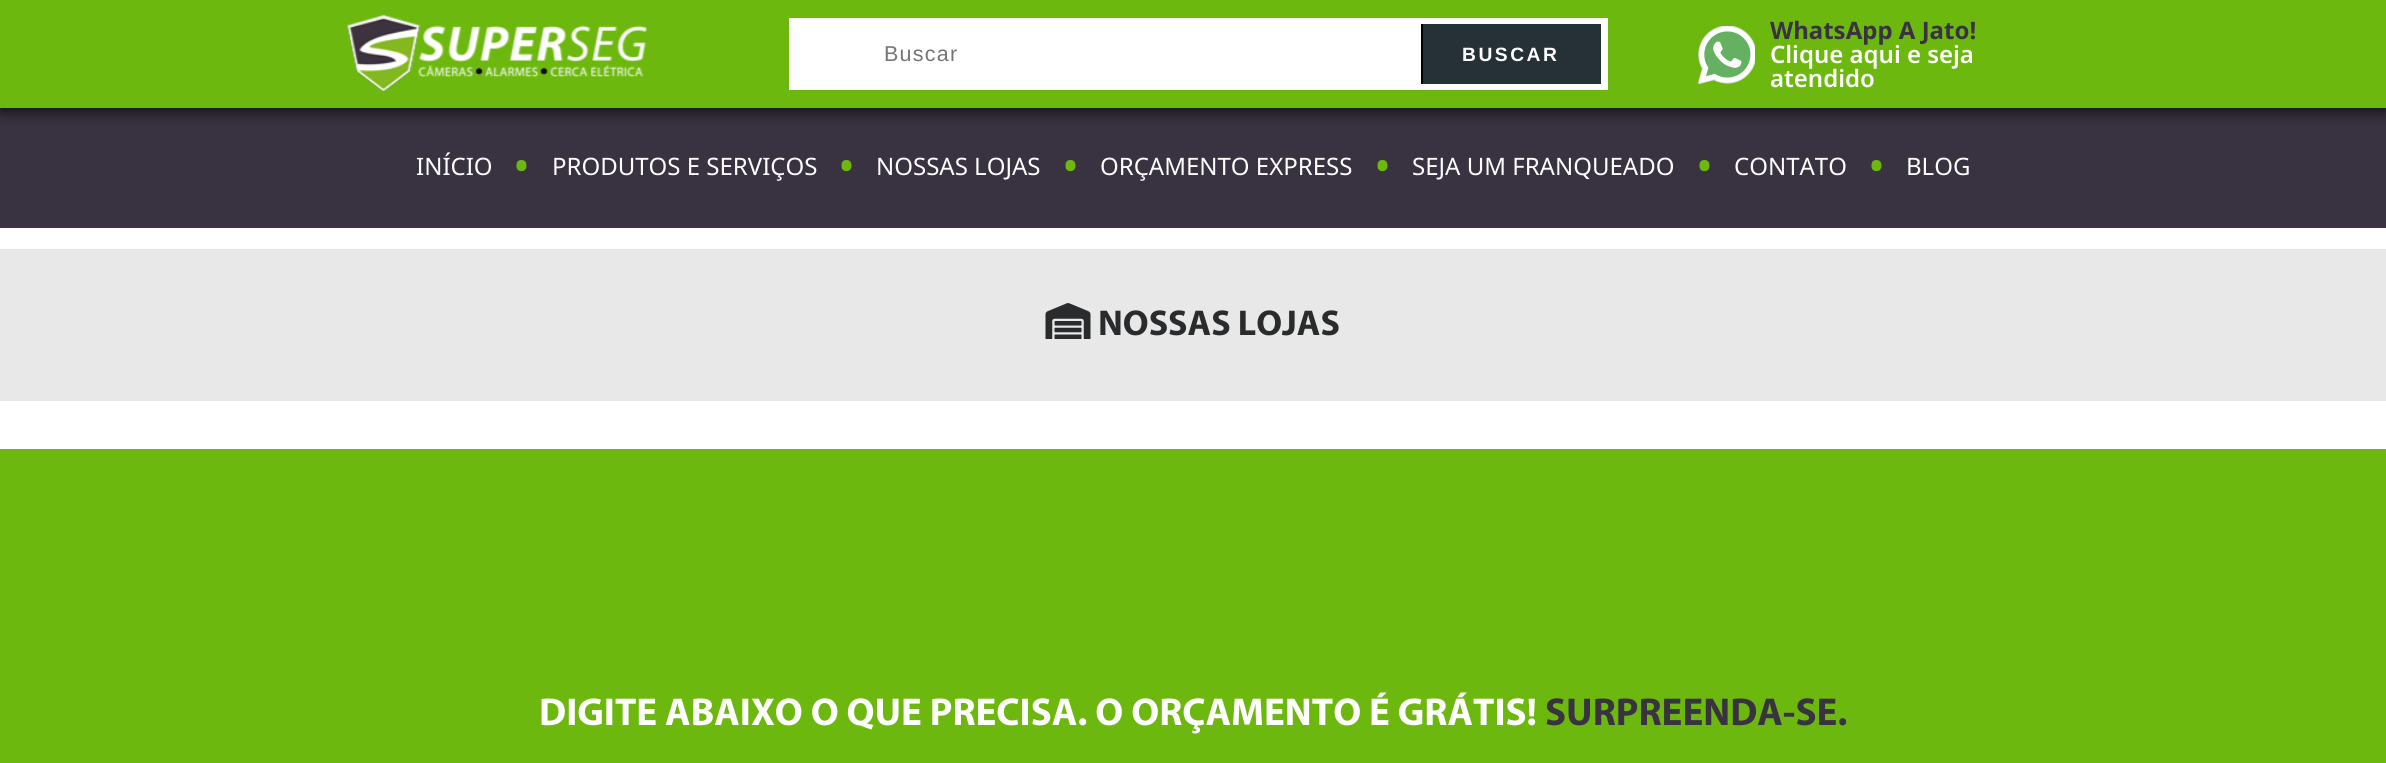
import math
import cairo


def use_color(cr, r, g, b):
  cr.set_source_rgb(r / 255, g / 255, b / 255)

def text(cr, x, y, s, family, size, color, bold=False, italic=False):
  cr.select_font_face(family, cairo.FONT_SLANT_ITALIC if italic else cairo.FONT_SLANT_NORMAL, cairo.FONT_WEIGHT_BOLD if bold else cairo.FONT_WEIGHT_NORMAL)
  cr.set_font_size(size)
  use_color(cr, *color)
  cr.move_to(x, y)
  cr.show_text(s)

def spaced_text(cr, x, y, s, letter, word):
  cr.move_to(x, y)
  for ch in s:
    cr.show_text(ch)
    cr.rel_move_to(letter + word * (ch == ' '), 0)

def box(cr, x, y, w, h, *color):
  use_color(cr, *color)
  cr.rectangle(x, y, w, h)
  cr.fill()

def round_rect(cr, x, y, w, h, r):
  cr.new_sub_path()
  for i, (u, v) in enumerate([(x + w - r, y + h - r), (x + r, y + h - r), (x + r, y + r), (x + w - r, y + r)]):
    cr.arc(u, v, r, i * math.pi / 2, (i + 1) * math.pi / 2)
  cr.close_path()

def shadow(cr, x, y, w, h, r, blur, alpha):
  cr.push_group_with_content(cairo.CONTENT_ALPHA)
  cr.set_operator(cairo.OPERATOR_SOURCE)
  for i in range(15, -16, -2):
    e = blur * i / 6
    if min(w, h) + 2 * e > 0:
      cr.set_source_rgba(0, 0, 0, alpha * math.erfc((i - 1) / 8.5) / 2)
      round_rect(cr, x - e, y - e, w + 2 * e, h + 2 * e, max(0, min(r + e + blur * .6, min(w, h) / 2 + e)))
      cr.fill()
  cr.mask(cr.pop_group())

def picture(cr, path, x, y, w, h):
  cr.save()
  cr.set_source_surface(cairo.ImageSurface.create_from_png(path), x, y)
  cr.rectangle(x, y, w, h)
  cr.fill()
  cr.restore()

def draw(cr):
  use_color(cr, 255, 255, 255)
  cr.paint()
  box(cr, 0, 108, 2386, 120, 57, 50, 64)
  use_color(cr, 0, 0, 0)
  shadow(cr, 0, 3, 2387, 108, 0, 7.5, 0.75)
  box(cr, 0, 0, 2386, 108, 109, 184, 14)
  picture(cr, "img_01.png", 346, 15, 301, 77)
  box(cr, 789, 18, 819, 72, 255, 255, 255)
  box(cr, 1423, 24, 178, 60, 38, 49, 55)
  box(cr, 1421, 24, 2, 60, 0, 0, 0)
  picture(cr, "img_02.png", 1698, 26, 57, 58)
  box(cr, 0, 249, 2386, 152, 232, 232, 232)
  picture(cr, "img_03.png", 1045, 303, 46, 36)
  box(cr, 0, 449, 2386, 314, 109, 184, 14)
  cr.select_font_face("Liberation Sans")
  cr.set_font_size(21.5)
  use_color(cr, 117, 117, 117)
  spaced_text(cr, 884, 61, "Buscar", 1.25, 0)
  cr.select_font_face("Liberation Sans", cairo.FONT_SLANT_NORMAL, cairo.FONT_WEIGHT_BOLD)
  cr.set_font_size(19.25)
  use_color(cr, 255, 255, 255)
  spaced_text(cr, 1462, 61, "BUSCAR", 2.5, 0)
  text(cr, 1770, 39, "WhatsApp A Jato!", "Noto Sans", 24, (57, 50, 64), bold=True)
  text(cr, 1770, 63, "Clique aqui e seja", "Noto Sans SemiBold", 24, (255, 255, 255))
  text(cr, 1770, 87, "atendido", "Noto Sans SemiBold", 24, (255, 255, 255))
  text(cr, 416, 175, "INÍCIO", "Noto Sans", 24, (255, 255, 255))
  text(cr, 513, 182, "•", "Noto Sans", 45, (109, 184, 14))
  text(cr, 552, 175, "PRODUTOS E SERVIÇOS", "Noto Sans", 24, (255, 255, 255))
  text(cr, 838, 182, "•", "Noto Sans", 45, (109, 184, 14))
  text(cr, 876, 175, "NOSSAS LOJAS", "Noto Sans", 24, (255, 255, 255))
  text(cr, 1062, 182, "•", "Noto Sans", 45, (109, 184, 14))
  text(cr, 1100, 175, "ORÇAMENTO EXPRESS", "Noto Sans", 24, (255, 255, 255))
  text(cr, 1374, 182, "•", "Noto Sans", 45, (109, 184, 14))
  text(cr, 1412, 175, "SEJA UM FRANQUEADO", "Noto Sans", 24, (255, 255, 255))
  text(cr, 1696, 182, "•", "Noto Sans", 45, (109, 184, 14))
  text(cr, 1734, 175, "CONTATO", "Noto Sans", 24, (255, 255, 255))
  text(cr, 1868, 182, "•", "Noto Sans", 45, (109, 184, 14))
  text(cr, 1906, 175, "BLOG", "Noto Sans", 24, (255, 255, 255))
  text(cr, 1098, 335, "NOSSAS LOJAS", "Myriad", 36, (41, 43, 44), bold=True)
  text(cr, 539, 725, "DIGITE ABAIXO O QUE PRECISA. O ORÇAMENTO É GRÁTIS!", "Myriad", 39, (255, 255, 255), bold=True)
  text(cr, 1545, 725, "SURPREENDA-SE.", "Myriad", 39, (57, 50, 64), bold=True)


surface = cairo.ImageSurface(cairo.FORMAT_RGB24, 2386, 763)
cr = cairo.Context(surface)
options = cairo.FontOptions()
options.set_hint_metrics(cairo.HINT_METRICS_OFF)
options.set_hint_style(cairo.HINT_STYLE_NONE)
cr.set_font_options(options)
cr.set_miter_limit(4)
draw(cr)
surface.write_to_png("out.png")
